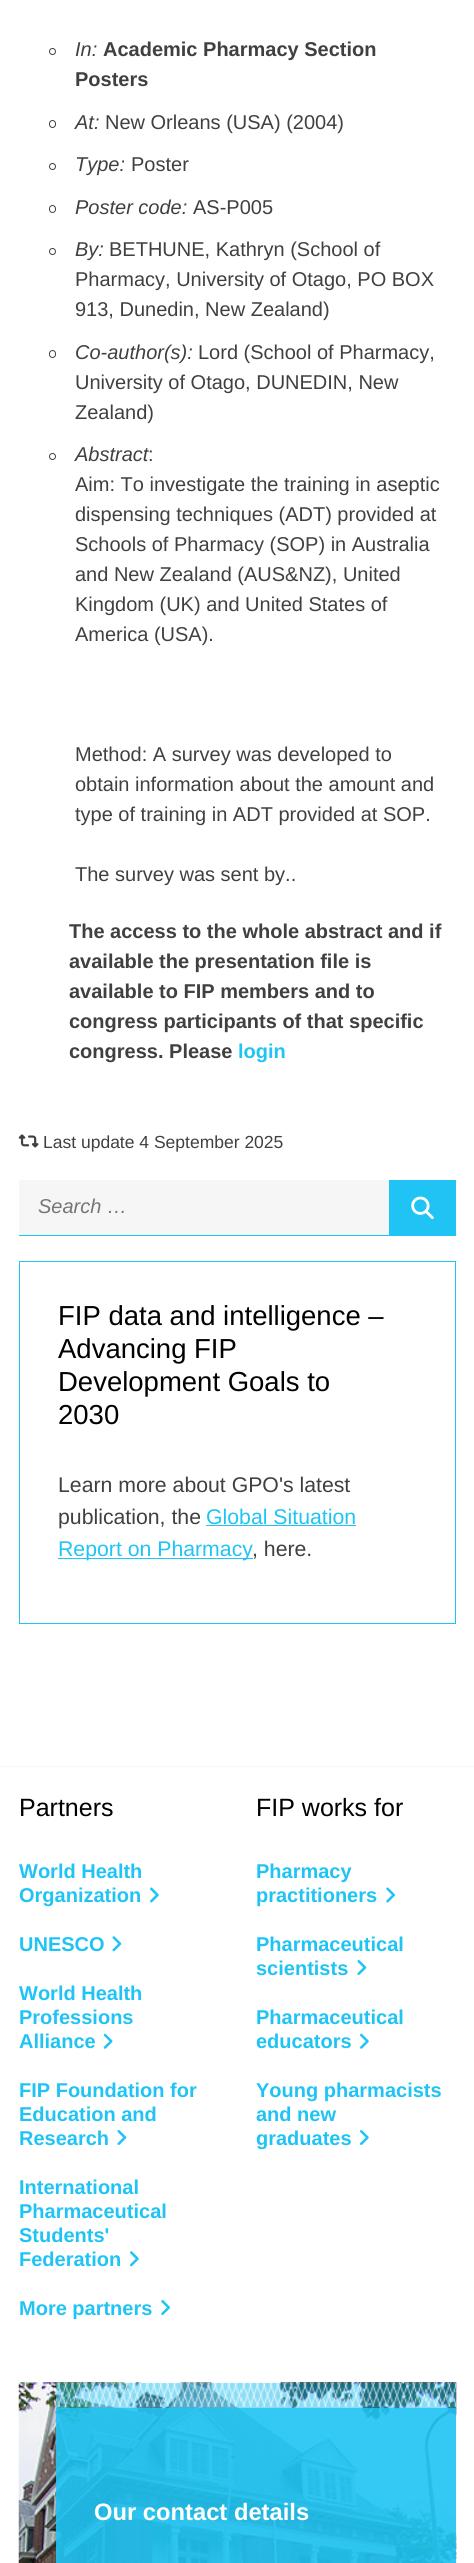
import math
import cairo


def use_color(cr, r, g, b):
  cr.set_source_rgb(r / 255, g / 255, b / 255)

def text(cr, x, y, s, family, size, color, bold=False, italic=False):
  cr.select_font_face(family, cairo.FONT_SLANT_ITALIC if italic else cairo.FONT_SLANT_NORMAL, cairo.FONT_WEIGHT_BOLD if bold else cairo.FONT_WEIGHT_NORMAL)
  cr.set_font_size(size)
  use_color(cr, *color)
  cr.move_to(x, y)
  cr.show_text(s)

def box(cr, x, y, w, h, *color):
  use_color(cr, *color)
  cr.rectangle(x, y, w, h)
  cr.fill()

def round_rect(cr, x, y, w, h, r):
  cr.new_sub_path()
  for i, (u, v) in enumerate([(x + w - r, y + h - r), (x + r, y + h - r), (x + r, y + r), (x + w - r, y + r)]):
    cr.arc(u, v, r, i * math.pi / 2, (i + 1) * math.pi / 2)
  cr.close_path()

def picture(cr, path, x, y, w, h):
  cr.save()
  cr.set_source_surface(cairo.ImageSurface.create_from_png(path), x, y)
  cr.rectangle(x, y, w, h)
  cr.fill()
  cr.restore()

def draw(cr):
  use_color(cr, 255, 255, 255)
  cr.paint()
  cr.arc(52.5, 51.5, 3, 0, 2 * math.pi)
  use_color(cr, 64, 64, 64)
  cr.set_line_width(1)
  cr.stroke()
  round_rect(cr, 49.5, 120.5, 6, 7, 3)
  cr.stroke()
  cr.arc(52.5, 166.5, 3, 0, 2 * math.pi)
  cr.stroke()
  round_rect(cr, 49.5, 205.5, 6, 7, 3)
  cr.stroke()
  cr.arc(52.5, 251.5, 3, 0, 2 * math.pi)
  cr.stroke()
  round_rect(cr, 49.5, 350.5, 6, 7, 3)
  cr.stroke()
  cr.arc(52.5, 456.5, 3, 0, 2 * math.pi)
  cr.stroke()
  picture(cr, "img_01.png", 18, 1134, 21, 14)
  box(cr, 19, 1235, 437, 1, 32, 196, 244)
  box(cr, 19, 1180, 370, 55, 246, 246, 246)
  box(cr, 389, 1180, 67, 55, 32, 196, 244)
  picture(cr, "img_02.png", 411, 1196, 23, 23)
  cr.rectangle(19.5, 1261.5, 436, 362)
  cr.stroke()
  box(cr, 206, 1525, 150, 1, 32, 196, 244)
  box(cr, 58, 1558, 195, 1, 32, 196, 244)
  box(cr, 0, 1766, 474, 1, 246, 246, 246)
  picture(cr, "img_03.png", 150, 1887, 9, 16)
  picture(cr, "img_04.png", 112, 1936, 10, 16)
  picture(cr, "img_05.png", 103, 2033, 10, 16)
  picture(cr, "img_06.png", 117, 2130, 10, 15)
  picture(cr, "img_07.png", 130, 2251, 9, 16)
  picture(cr, "img_08.png", 161, 2300, 9, 15)
  picture(cr, "img_09.png", 386, 1887, 9, 16)
  picture(cr, "img_06.png", 357, 1960, 10, 15)
  picture(cr, "img_10.png", 360, 2033, 9, 16)
  picture(cr, "img_11.png", 360, 2130, 9, 15)
  picture(cr, "img_12.png", 18, 2382, 439, 181)
  cr.set_source_rgba(0.125, 0.769, 0.957, 0.9)
  cr.rectangle(56, 2408, 400, 155)
  cr.fill()
  cr.set_source_rgba(0.125, 0.769, 0.957, 0.5)
  cr.rectangle(56, 2383, 400, 25)
  cr.fill()
  picture(cr, "img_13.png", 56, 2382, 401, 25)
  text(cr, 75, 56, "In:", "Liberation Sans", 20, (64, 64, 64), italic=True)
  text(cr, 103, 56, "Academic Pharmacy Section", "Liberation Sans", 20, (64, 64, 64), bold=True)
  text(cr, 75, 86, "Posters", "Liberation Sans", 20, (64, 64, 64), bold=True)
  text(cr, 75, 129, "At:", "Liberation Sans", 20, (64, 64, 64), italic=True)
  text(cr, 105, 129, "New Orleans (USA) (2004)", "Liberation Sans", 20, (64, 64, 64))
  text(cr, 75, 171, "Type:", "Liberation Sans", 20, (64, 64, 64), italic=True)
  text(cr, 131, 171, "Poster", "Liberation Sans", 20, (64, 64, 64))
  text(cr, 75, 214, "Poster code:", "Liberation Sans", 20, (64, 64, 64), italic=True)
  text(cr, 193, 214, "AS-P005", "Liberation Sans", 20, (64, 64, 64))
  text(cr, 75, 256, "By:", "Liberation Sans", 20, (64, 64, 64), italic=True)
  text(cr, 109, 256, "BETHUNE, Kathryn (School of", "Liberation Sans", 20, (64, 64, 64))
  text(cr, 75, 286, "Pharmacy, University of Otago, PO BOX", "Liberation Sans", 20, (64, 64, 64))
  text(cr, 75, 316, "913, Dunedin, New Zealand)", "Liberation Sans", 20, (64, 64, 64))
  text(cr, 75, 359, "Co-author(s):", "Liberation Sans", 20, (64, 64, 64), italic=True)
  text(cr, 198, 359, "Lord (School of Pharmacy,", "Liberation Sans", 20, (64, 64, 64))
  text(cr, 75, 389, "University of Otago, DUNEDIN, New", "Liberation Sans", 20, (64, 64, 64))
  text(cr, 75, 419, "Zealand)", "Liberation Sans", 20, (64, 64, 64))
  text(cr, 75, 461, "Abstract", "Liberation Sans", 20, (64, 64, 64), italic=True)
  text(cr, 148, 461, ":", "Liberation Sans", 20, (64, 64, 64))
  text(cr, 75, 491, "Aim: To investigate the training in aseptic", "Liberation Sans", 20, (64, 64, 64))
  text(cr, 75, 521, "dispensing techniques (ADT) provided at", "Liberation Sans", 20, (64, 64, 64))
  text(cr, 75, 551, "Schools of Pharmacy (SOP) in Australia", "Liberation Sans", 20, (64, 64, 64))
  text(cr, 75, 581, "and New Zealand (AUS&NZ), United", "Liberation Sans", 20, (64, 64, 64))
  text(cr, 75, 611, "Kingdom (UK) and United States of", "Liberation Sans", 20, (64, 64, 64))
  text(cr, 75, 641, "America (USA).", "Liberation Sans", 20, (64, 64, 64))
  text(cr, 75, 761, "Method: A survey was developed to", "Liberation Sans", 20, (64, 64, 64))
  text(cr, 75, 791, "obtain information about the amount and", "Liberation Sans", 20, (64, 64, 64))
  text(cr, 75, 821, "type of training in ADT provided at SOP.", "Liberation Sans", 20, (64, 64, 64))
  text(cr, 75, 881, "The survey was sent by..", "Liberation Sans", 20, (64, 64, 64))
  text(cr, 69, 938, "The access to the whole abstract and if", "Liberation Sans", 20, (64, 64, 64), bold=True)
  text(cr, 69, 968, "available the presentation file is", "Liberation Sans", 20, (64, 64, 64), bold=True)
  text(cr, 69, 998, "available to FIP members and to", "Liberation Sans", 20, (64, 64, 64), bold=True)
  text(cr, 69, 1028, "congress participants of that specific", "Liberation Sans", 20, (64, 64, 64), bold=True)
  text(cr, 69, 1058, "congress. Please", "Liberation Sans", 20, (64, 64, 64), bold=True)
  text(cr, 238, 1058, "login", "Liberation Sans", 20, (32, 196, 244), bold=True)
  text(cr, 43, 1148, "Last update 4 September 2025", "Liberation Sans", 17.5, (64, 64, 64))
  text(cr, 38, 1213, "Search …", "Liberation Sans", 20, (117, 117, 117), italic=True)
  text(cr, 58, 1325, "FIP data and intelligence –", "Liberation Sans", 27.5, (0, 0, 0))
  text(cr, 58, 1358, "Advancing FIP", "Liberation Sans", 27.5, (0, 0, 0))
  text(cr, 58, 1391, "Development Goals to", "Liberation Sans", 27.5, (0, 0, 0))
  text(cr, 58, 1424, "2030", "Liberation Sans", 27.5, (0, 0, 0))
  text(cr, 58, 1492, "Learn more about GPO's latest", "Liberation Sans", 21.25, (64, 64, 64))
  text(cr, 58, 1524, "publication, the", "Liberation Sans", 21.25, (64, 64, 64))
  text(cr, 206, 1524, "Global Situation", "Liberation Sans", 21.25, (32, 196, 244))
  text(cr, 58, 1556, "Report on Pharmacy", "Liberation Sans", 21.25, (32, 196, 244))
  text(cr, 252, 1556, ", here.", "Liberation Sans", 21.25, (64, 64, 64))
  text(cr, 19, 1816, "Partners", "Liberation Sans", 25, (0, 0, 0))
  text(cr, 19, 1878, "World Health", "Liberation Sans", 20, (32, 196, 244), bold=True)
  text(cr, 19, 1902, "Organization", "Liberation Sans", 20, (32, 196, 244), bold=True)
  text(cr, 19, 1951, "UNESCO", "Liberation Sans", 20, (32, 196, 244), bold=True)
  text(cr, 19, 2000, "World Health", "Liberation Sans", 20, (32, 196, 244), bold=True)
  text(cr, 19, 2024, "Professions", "Liberation Sans", 20, (32, 196, 244), bold=True)
  text(cr, 19, 2048, "Alliance", "Liberation Sans", 20, (32, 196, 244), bold=True)
  text(cr, 19, 2097, "FIP Foundation for", "Liberation Sans", 20, (32, 196, 244), bold=True)
  text(cr, 19, 2121, "Education and", "Liberation Sans", 20, (32, 196, 244), bold=True)
  text(cr, 19, 2145, "Research", "Liberation Sans", 20, (32, 196, 244), bold=True)
  text(cr, 19, 2194, "International", "Liberation Sans", 20, (32, 196, 244), bold=True)
  text(cr, 19, 2218, "Pharmaceutical", "Liberation Sans", 20, (32, 196, 244), bold=True)
  text(cr, 19, 2242, "Students'", "Liberation Sans", 20, (32, 196, 244), bold=True)
  text(cr, 19, 2266, "Federation", "Liberation Sans", 20, (32, 196, 244), bold=True)
  text(cr, 19, 2315, "More partners", "Liberation Sans", 20, (32, 196, 244), bold=True)
  text(cr, 256, 1816, "FIP works for", "Liberation Sans", 25, (0, 0, 0))
  text(cr, 256, 1878, "Pharmacy", "Liberation Sans", 20, (32, 196, 244), bold=True)
  text(cr, 256, 1902, "practitioners", "Liberation Sans", 20, (32, 196, 244), bold=True)
  text(cr, 256, 1951, "Pharmaceutical", "Liberation Sans", 20, (32, 196, 244), bold=True)
  text(cr, 256, 1975, "scientists", "Liberation Sans", 20, (32, 196, 244), bold=True)
  text(cr, 256, 2024, "Pharmaceutical", "Liberation Sans", 20, (32, 196, 244), bold=True)
  text(cr, 256, 2048, "educators", "Liberation Sans", 20, (32, 196, 244), bold=True)
  text(cr, 256, 2097, "Young pharmacists", "Liberation Sans", 20, (32, 196, 244), bold=True)
  text(cr, 256, 2121, "and new", "Liberation Sans", 20, (32, 196, 244), bold=True)
  text(cr, 256, 2145, "graduates", "Liberation Sans", 20, (32, 196, 244), bold=True)
  text(cr, 94, 2520, "Our contact details", "Liberation Sans", 23.75, (255, 255, 255), bold=True)


surface = cairo.ImageSurface(cairo.FORMAT_RGB24, 474, 2563)
cr = cairo.Context(surface)
options = cairo.FontOptions()
options.set_hint_metrics(cairo.HINT_METRICS_OFF)
options.set_hint_style(cairo.HINT_STYLE_NONE)
cr.set_font_options(options)
cr.set_miter_limit(4)
draw(cr)
surface.write_to_png("out.png")
